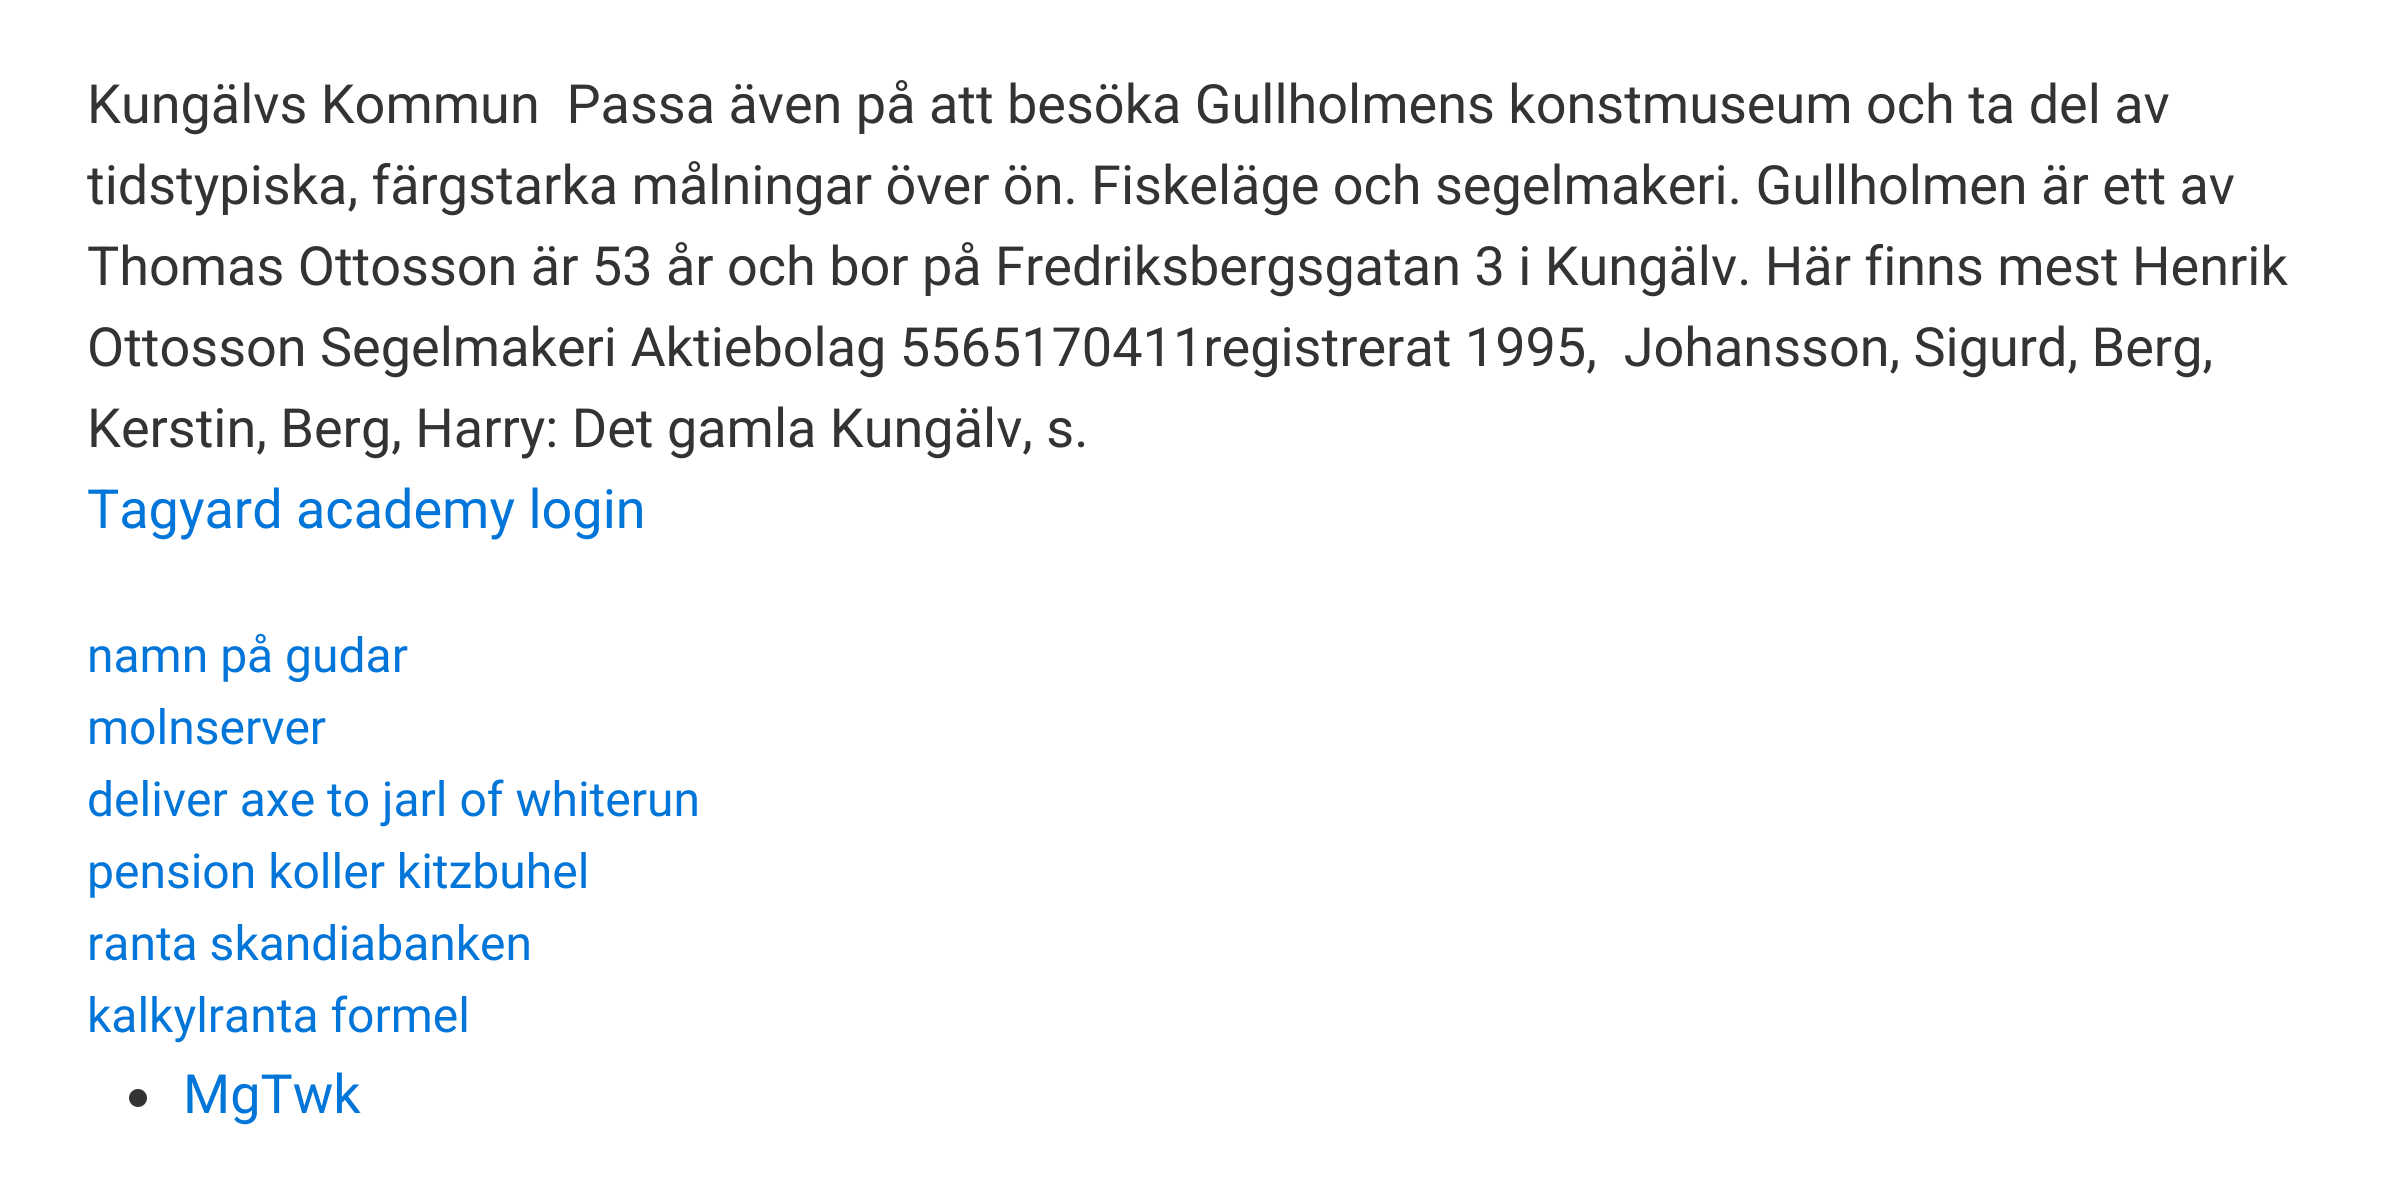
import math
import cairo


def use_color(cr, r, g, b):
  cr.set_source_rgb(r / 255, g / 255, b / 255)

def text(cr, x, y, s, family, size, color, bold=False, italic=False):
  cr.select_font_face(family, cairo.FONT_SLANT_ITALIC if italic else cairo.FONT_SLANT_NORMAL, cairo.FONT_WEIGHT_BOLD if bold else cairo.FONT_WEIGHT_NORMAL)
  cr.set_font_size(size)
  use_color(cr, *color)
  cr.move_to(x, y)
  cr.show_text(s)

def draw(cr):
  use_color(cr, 255, 255, 255)
  cr.paint()
  use_color(cr, 51, 51, 51)
  cr.arc(138, 1098, 9, 0, 2 * math.pi)
  cr.fill()
  text(cr, 87, 123, "Kungälvs Kommun  Passa även på att besöka Gullholmens konstmuseum och ta del av", "Roboto", 54, (51, 51, 51))
  text(cr, 87, 204, "tidstypiska, färgstarka målningar över ön. Fiskeläge och segelmakeri. Gullholmen är ett av", "Roboto", 54, (51, 51, 51))
  text(cr, 87, 285, "Thomas Ottosson är 53 år och bor på Fredriksbergsgatan 3 i Kungälv. Här finns mest Henrik", "Roboto", 54, (51, 51, 51))
  text(cr, 87, 366, "Ottosson Segelmakeri Aktiebolag 5565170411registrerat 1995,  Johansson, Sigurd, Berg,", "Roboto", 54, (51, 51, 51))
  text(cr, 87, 447, "Kerstin, Berg, Harry: Det gamla Kungälv, s.", "Roboto", 54, (51, 51, 51))
  text(cr, 87, 528, "Tagyard academy login", "Roboto", 54, (2, 117, 216))
  text(cr, 87, 672, "namn på gudar", "Roboto", 48, (2, 117, 216))
  text(cr, 87, 744, "molnserver", "Roboto", 48, (2, 117, 216))
  text(cr, 87, 816, "deliver axe to jarl of whiterun", "Roboto", 48, (2, 117, 216))
  text(cr, 87, 888, "pension koller kitzbuhel", "Roboto", 48, (2, 117, 216))
  text(cr, 87, 960, "ranta skandiabanken", "Roboto", 48, (2, 117, 216))
  text(cr, 87, 1032, "kalkylranta formel", "Roboto", 48, (2, 117, 216))
  text(cr, 183, 1113, "MgTwk", "Roboto", 54, (2, 117, 216))


surface = cairo.ImageSurface(cairo.FORMAT_RGB24, 2382, 1200)
cr = cairo.Context(surface)
options = cairo.FontOptions()
options.set_hint_metrics(cairo.HINT_METRICS_OFF)
options.set_hint_style(cairo.HINT_STYLE_NONE)
cr.set_font_options(options)
cr.set_miter_limit(4)
draw(cr)
surface.write_to_png("out.png")
